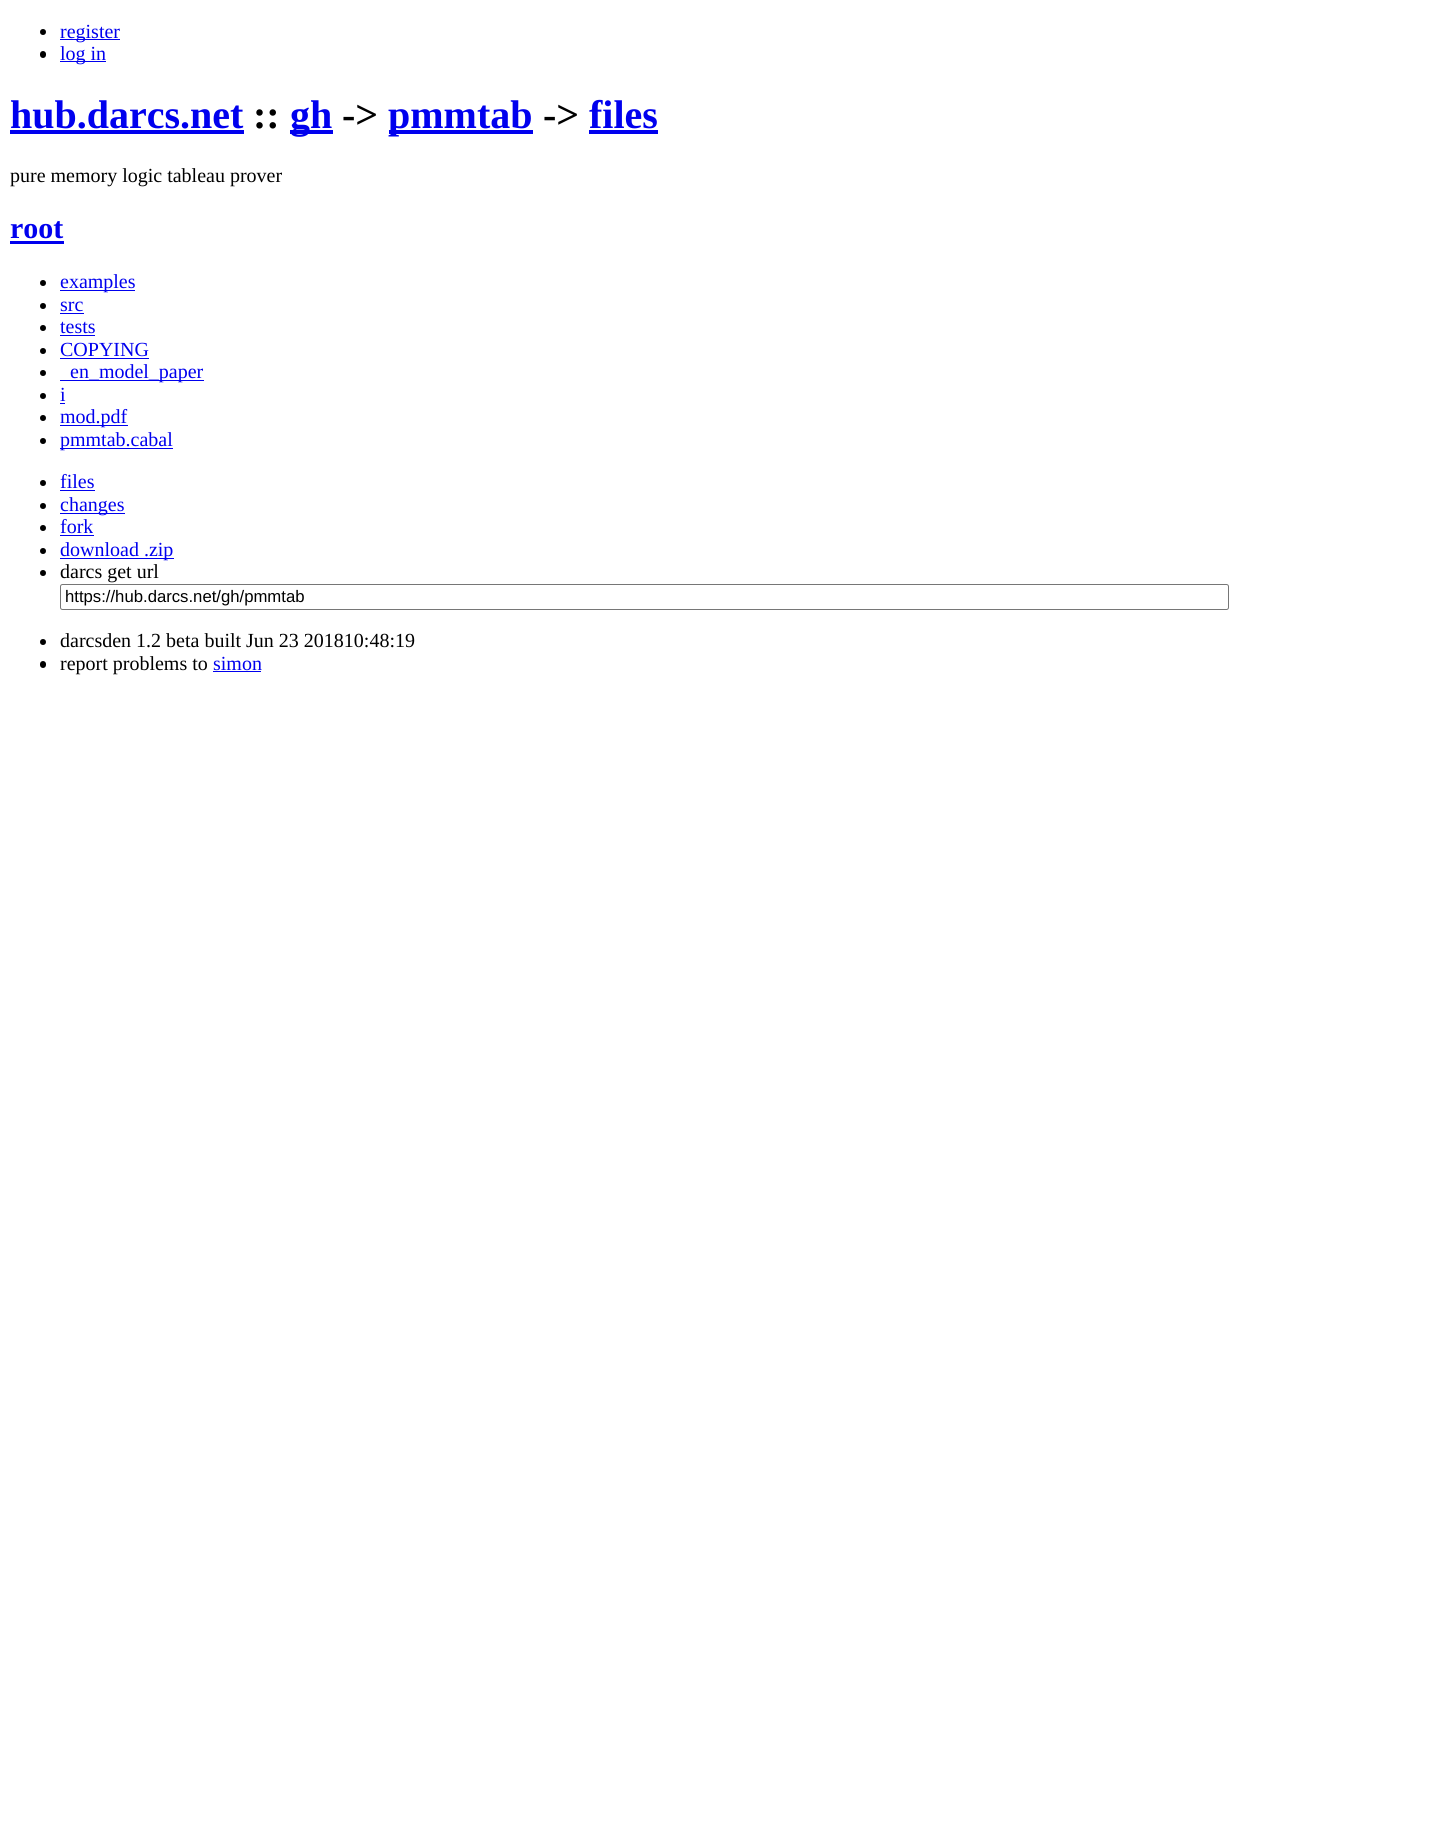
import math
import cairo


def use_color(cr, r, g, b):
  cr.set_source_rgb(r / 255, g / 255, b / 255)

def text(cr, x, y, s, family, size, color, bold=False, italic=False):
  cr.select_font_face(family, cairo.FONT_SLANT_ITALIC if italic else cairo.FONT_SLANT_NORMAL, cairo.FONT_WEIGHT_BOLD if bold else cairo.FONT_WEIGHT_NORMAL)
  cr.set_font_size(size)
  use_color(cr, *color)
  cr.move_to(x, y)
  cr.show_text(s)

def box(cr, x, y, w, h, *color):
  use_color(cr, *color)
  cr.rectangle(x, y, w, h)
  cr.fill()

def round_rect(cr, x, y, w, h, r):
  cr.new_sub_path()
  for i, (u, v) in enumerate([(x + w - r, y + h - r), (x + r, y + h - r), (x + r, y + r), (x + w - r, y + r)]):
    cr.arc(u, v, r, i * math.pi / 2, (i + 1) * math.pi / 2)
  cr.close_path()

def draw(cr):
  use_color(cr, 255, 255, 255)
  cr.paint()
  use_color(cr, 0, 0, 0)
  cr.arc(43, 32, 3, 0, 2 * math.pi)
  cr.fill()
  box(cr, 60, 39, 60, 1, 0, 0, 238)
  use_color(cr, 0, 0, 0)
  round_rect(cr, 40, 51, 6, 7, 3)
  cr.fill()
  box(cr, 60, 61, 46, 1, 0, 0, 238)
  box(cr, 10, 130, 234, 4, 0, 0, 238)
  box(cr, 290, 130, 43, 4, 0, 0, 238)
  box(cr, 389, 130, 144, 4, 0, 0, 238)
  box(cr, 589, 130, 69, 4, 0, 0, 238)
  box(cr, 10, 241, 54, 3, 0, 0, 238)
  use_color(cr, 0, 0, 0)
  cr.arc(43, 283, 3, 0, 2 * math.pi)
  cr.fill()
  box(cr, 60, 290, 75, 1, 0, 0, 238)
  use_color(cr, 0, 0, 0)
  cr.arc(43, 306, 3, 0, 2 * math.pi)
  cr.fill()
  box(cr, 60, 313, 24, 1, 0, 0, 238)
  use_color(cr, 0, 0, 0)
  cr.arc(43, 328, 3, 0, 2 * math.pi)
  cr.fill()
  box(cr, 60, 335, 35, 1, 0, 0, 238)
  use_color(cr, 0, 0, 0)
  cr.arc(43, 351, 3, 0, 2 * math.pi)
  cr.fill()
  box(cr, 60, 358, 89, 1, 0, 0, 238)
  use_color(cr, 0, 0, 0)
  cr.arc(43, 373, 3, 0, 2 * math.pi)
  cr.fill()
  box(cr, 60, 380, 144, 1, 0, 0, 238)
  use_color(cr, 0, 0, 0)
  cr.arc(43, 396, 3, 0, 2 * math.pi)
  cr.fill()
  box(cr, 60, 403, 5, 1, 0, 0, 238)
  use_color(cr, 0, 0, 0)
  cr.arc(43, 418, 3, 0, 2 * math.pi)
  cr.fill()
  box(cr, 60, 425, 68, 1, 0, 0, 238)
  use_color(cr, 0, 0, 0)
  cr.arc(43, 441, 3, 0, 2 * math.pi)
  cr.fill()
  box(cr, 60, 448, 113, 1, 0, 0, 238)
  use_color(cr, 0, 0, 0)
  cr.arc(43, 483, 3, 0, 2 * math.pi)
  cr.fill()
  box(cr, 60, 490, 35, 1, 0, 0, 238)
  use_color(cr, 0, 0, 0)
  cr.arc(43, 506, 3, 0, 2 * math.pi)
  cr.fill()
  box(cr, 60, 513, 65, 1, 0, 0, 238)
  use_color(cr, 0, 0, 0)
  cr.arc(43, 528, 3, 0, 2 * math.pi)
  cr.fill()
  box(cr, 60, 535, 34, 1, 0, 0, 238)
  use_color(cr, 0, 0, 0)
  cr.arc(43, 551, 3, 0, 2 * math.pi)
  cr.fill()
  box(cr, 60, 558, 114, 1, 0, 0, 238)
  use_color(cr, 0, 0, 0)
  cr.arc(43, 573, 3, 0, 2 * math.pi)
  cr.fill()
  round_rect(cr, 60.5, 584.5, 1168, 25, 2)
  use_color(cr, 118, 118, 118)
  cr.set_line_width(1)
  cr.stroke()
  use_color(cr, 0, 0, 0)
  cr.arc(43, 642, 3, 0, 2 * math.pi)
  cr.fill()
  round_rect(cr, 40, 661, 6, 7, 3)
  cr.fill()
  box(cr, 213, 671, 48, 1, 0, 0, 238)
  text(cr, 60, 38, "register", "Liberation Serif", 20, (0, 0, 238))
  text(cr, 60, 60, "log in", "Liberation Serif", 20, (0, 0, 238))
  text(cr, 10, 128, "hub.darcs.net", "Liberation Serif", 40, (0, 0, 238), bold=True)
  text(cr, 253, 128, "::", "Liberation Serif", 40, (0, 0, 0), bold=True)
  text(cr, 290, 128, "gh", "Liberation Serif", 40, (0, 0, 238), bold=True)
  text(cr, 342, 128, "->", "Liberation Serif", 40, (0, 0, 0), bold=True)
  text(cr, 388, 128, "pmmtab", "Liberation Serif", 40, (0, 0, 238), bold=True)
  text(cr, 543, 128, "->", "Liberation Serif", 40, (0, 0, 0), bold=True)
  text(cr, 589, 128, "files", "Liberation Serif", 40, (0, 0, 238), bold=True)
  text(cr, 10, 182, "pure memory logic tableau prover", "Liberation Serif", 20, (0, 0, 0))
  text(cr, 10, 238, "root", "Liberation Serif", 30, (0, 0, 238), bold=True)
  text(cr, 60, 288, "examples", "Liberation Serif", 20, (0, 0, 238))
  text(cr, 60, 311, "src", "Liberation Serif", 20, (0, 0, 238))
  text(cr, 60, 333, "tests", "Liberation Serif", 20, (0, 0, 238))
  text(cr, 60, 356, "COPYING", "Liberation Serif", 20, (0, 0, 238))
  text(cr, 70, 378, "en_model_paper", "Liberation Serif", 20, (0, 0, 238))
  text(cr, 60, 401, "i", "Liberation Serif", 20, (0, 0, 238))
  text(cr, 60, 423, "mod.pdf", "Liberation Serif", 20, (0, 0, 238))
  text(cr, 60, 446, "pmmtab.cabal", "Liberation Serif", 20, (0, 0, 238))
  text(cr, 60, 488, "files", "Liberation Serif", 20, (0, 0, 238))
  text(cr, 60, 511, "changes", "Liberation Serif", 20, (0, 0, 238))
  text(cr, 60, 533, "fork", "Liberation Serif", 20, (0, 0, 238))
  text(cr, 60, 556, "download .zip", "Liberation Serif", 20, (0, 0, 238))
  text(cr, 60, 578, "darcs get url", "Liberation Serif", 20, (0, 0, 0))
  text(cr, 65, 602, "https://hub.darcs.net/gh/pmmtab", "Liberation Sans", 16.7, (0, 0, 0))
  text(cr, 60, 647, "darcsden 1.2 beta built Jun 23 201810:48:19", "Liberation Serif", 20, (0, 0, 0))
  text(cr, 60, 670, "report problems to", "Liberation Serif", 20, (0, 0, 0))
  text(cr, 213, 670, "simon", "Liberation Serif", 20, (0, 0, 238))


surface = cairo.ImageSurface(cairo.FORMAT_RGB24, 1433, 1835)
cr = cairo.Context(surface)
options = cairo.FontOptions()
options.set_hint_metrics(cairo.HINT_METRICS_OFF)
options.set_hint_style(cairo.HINT_STYLE_NONE)
cr.set_font_options(options)
cr.set_miter_limit(4)
draw(cr)
surface.write_to_png("out.png")
